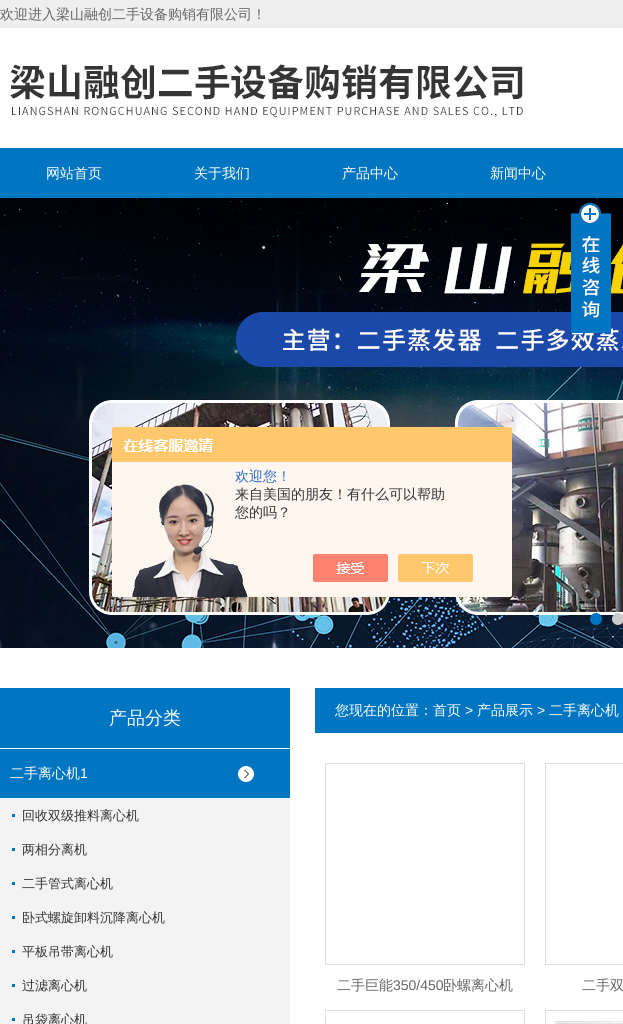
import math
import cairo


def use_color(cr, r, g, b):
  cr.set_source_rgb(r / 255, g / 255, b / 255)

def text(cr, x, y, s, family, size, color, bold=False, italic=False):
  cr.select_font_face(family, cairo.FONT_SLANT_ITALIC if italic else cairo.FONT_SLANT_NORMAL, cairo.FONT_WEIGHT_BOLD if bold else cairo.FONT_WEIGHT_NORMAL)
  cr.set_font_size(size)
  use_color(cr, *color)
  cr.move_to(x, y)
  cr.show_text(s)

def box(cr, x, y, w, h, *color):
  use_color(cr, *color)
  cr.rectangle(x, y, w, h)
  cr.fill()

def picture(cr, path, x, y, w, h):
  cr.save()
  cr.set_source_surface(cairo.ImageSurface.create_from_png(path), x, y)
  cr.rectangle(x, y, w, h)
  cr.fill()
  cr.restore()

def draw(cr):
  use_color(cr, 255, 255, 255)
  cr.paint()
  box(cr, 0, 0, 623, 28, 239, 239, 239)
  picture(cr, "img_01.png", 10, 64, 513, 53)
  box(cr, 0, 148, 623, 50, 0, 117, 193)
  picture(cr, "img_02.png", 0, 198, 623, 450)
  cr.arc(596, 619, 6, 0, 2 * math.pi)
  cr.fill()
  use_color(cr, 204, 204, 204)
  cr.arc(618, 619, 6, 0, 2 * math.pi)
  cr.fill()
  picture(cr, "img_03.png", 571, 202, 40, 131)
  picture(cr, "img_04.png", 112, 427, 400, 170)
  box(cr, 0, 688, 290, 60, 0, 117, 193)
  box(cr, 0, 749, 290, 49, 0, 117, 193)
  picture(cr, "img_05.png", 238, 766, 16, 16)
  box(cr, 0, 798, 290, 226, 243, 243, 243)
  box(cr, 12, 814, 3, 3, 0, 117, 193)
  box(cr, 12, 848, 3, 3, 0, 117, 193)
  box(cr, 12, 882, 3, 3, 0, 117, 193)
  box(cr, 12, 916, 3, 3, 0, 117, 193)
  box(cr, 12, 950, 3, 3, 0, 117, 193)
  box(cr, 12, 984, 3, 3, 0, 117, 193)
  box(cr, 12, 1018, 3, 3, 0, 117, 193)
  box(cr, 315, 688, 308, 45, 0, 117, 193)
  cr.rectangle(325.5, 763.5, 199, 201)
  use_color(cr, 221, 221, 221)
  cr.set_line_width(1)
  cr.stroke()
  cr.rectangle(545.5, 763.5, 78, 201)
  cr.stroke()
  cr.rectangle(325.5, 1010.5, 199, 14)
  cr.stroke()
  cr.rectangle(545.5, 1010.5, 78, 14)
  cr.stroke()
  picture(cr, "img_06.png", 555, 1021, 68, 3)
  text(cr, 0, 19, "欢迎进入梁山融创二手设备购销有限公司！", "WenQuanYi Zen Hei Medium", 14, (102, 102, 102))
  text(cr, 46, 178, "网站首页", "WenQuanYi Zen Hei Medium", 14, (255, 255, 255))
  text(cr, 194, 178, "关于我们", "WenQuanYi Zen Hei Medium", 14, (255, 255, 255))
  text(cr, 342, 178, "产品中心", "WenQuanYi Zen Hei Medium", 14, (255, 255, 255))
  text(cr, 490, 178, "新闻中心", "WenQuanYi Zen Hei Medium", 14, (255, 255, 255))
  text(cr, 235, 481, "欢迎您！", "WenQuanYi Zen Hei Medium", 14, (46, 110, 198))
  text(cr, 235, 499, "来自美国的朋友！有什么可以帮助", "WenQuanYi Zen Hei Medium", 14, (51, 51, 51))
  text(cr, 235, 517, "您的吗？", "WenQuanYi Zen Hei Medium", 14, (51, 51, 51))
  text(cr, 109, 724, "产品分类", "WenQuanYi Zen Hei Medium", 18, (255, 255, 255))
  text(cr, 10, 778, "二手离心机", "WenQuanYi Zen Hei Medium", 14, (255, 255, 255))
  text(cr, 80, 778, "1", "Liberation Sans", 14, (255, 255, 255))
  text(cr, 22, 820, "回收双级推料离心机", "WenQuanYi Zen Hei Medium", 13, (51, 51, 51))
  text(cr, 22, 854, "两相分离机", "WenQuanYi Zen Hei Medium", 13, (51, 51, 51))
  text(cr, 22, 888, "二手管式离心机", "WenQuanYi Zen Hei Medium", 13, (51, 51, 51))
  text(cr, 22, 922, "卧式螺旋卸料沉降离心机", "WenQuanYi Zen Hei Medium", 13, (51, 51, 51))
  text(cr, 22, 956, "平板吊带离心机", "WenQuanYi Zen Hei Medium", 13, (51, 51, 51))
  text(cr, 22, 990, "过滤离心机", "WenQuanYi Zen Hei Medium", 13, (51, 51, 51))
  text(cr, 22, 1024, "吊袋离心机", "WenQuanYi Zen Hei Medium", 13, (51, 51, 51))
  text(cr, 335, 715, "您现在的位置：首页", "WenQuanYi Zen Hei Medium", 14, (255, 255, 255))
  text(cr, 465, 715, ">", "Liberation Sans", 14, (255, 255, 255))
  text(cr, 477, 715, "产品展示", "WenQuanYi Zen Hei Medium", 14, (255, 255, 255))
  text(cr, 537, 715, ">", "Liberation Sans", 14, (255, 255, 255))
  text(cr, 549, 715, "二手离心机", "WenQuanYi Zen Hei Medium", 14, (255, 255, 255))
  text(cr, 337, 990, "二手巨能", "WenQuanYi Zen Hei Medium", 14, (102, 102, 102))
  text(cr, 393, 990, "350/450", "Liberation Sans", 14, (102, 102, 102))
  text(cr, 443, 990, "卧螺离心机", "WenQuanYi Zen Hei Medium", 14, (102, 102, 102))
  text(cr, 582, 990, "二手双", "WenQuanYi Zen Hei Medium", 14, (102, 102, 102))


surface = cairo.ImageSurface(cairo.FORMAT_RGB24, 623, 1024)
cr = cairo.Context(surface)
options = cairo.FontOptions()
options.set_hint_metrics(cairo.HINT_METRICS_OFF)
options.set_hint_style(cairo.HINT_STYLE_NONE)
cr.set_font_options(options)
cr.set_miter_limit(4)
draw(cr)
surface.write_to_png("out.png")
